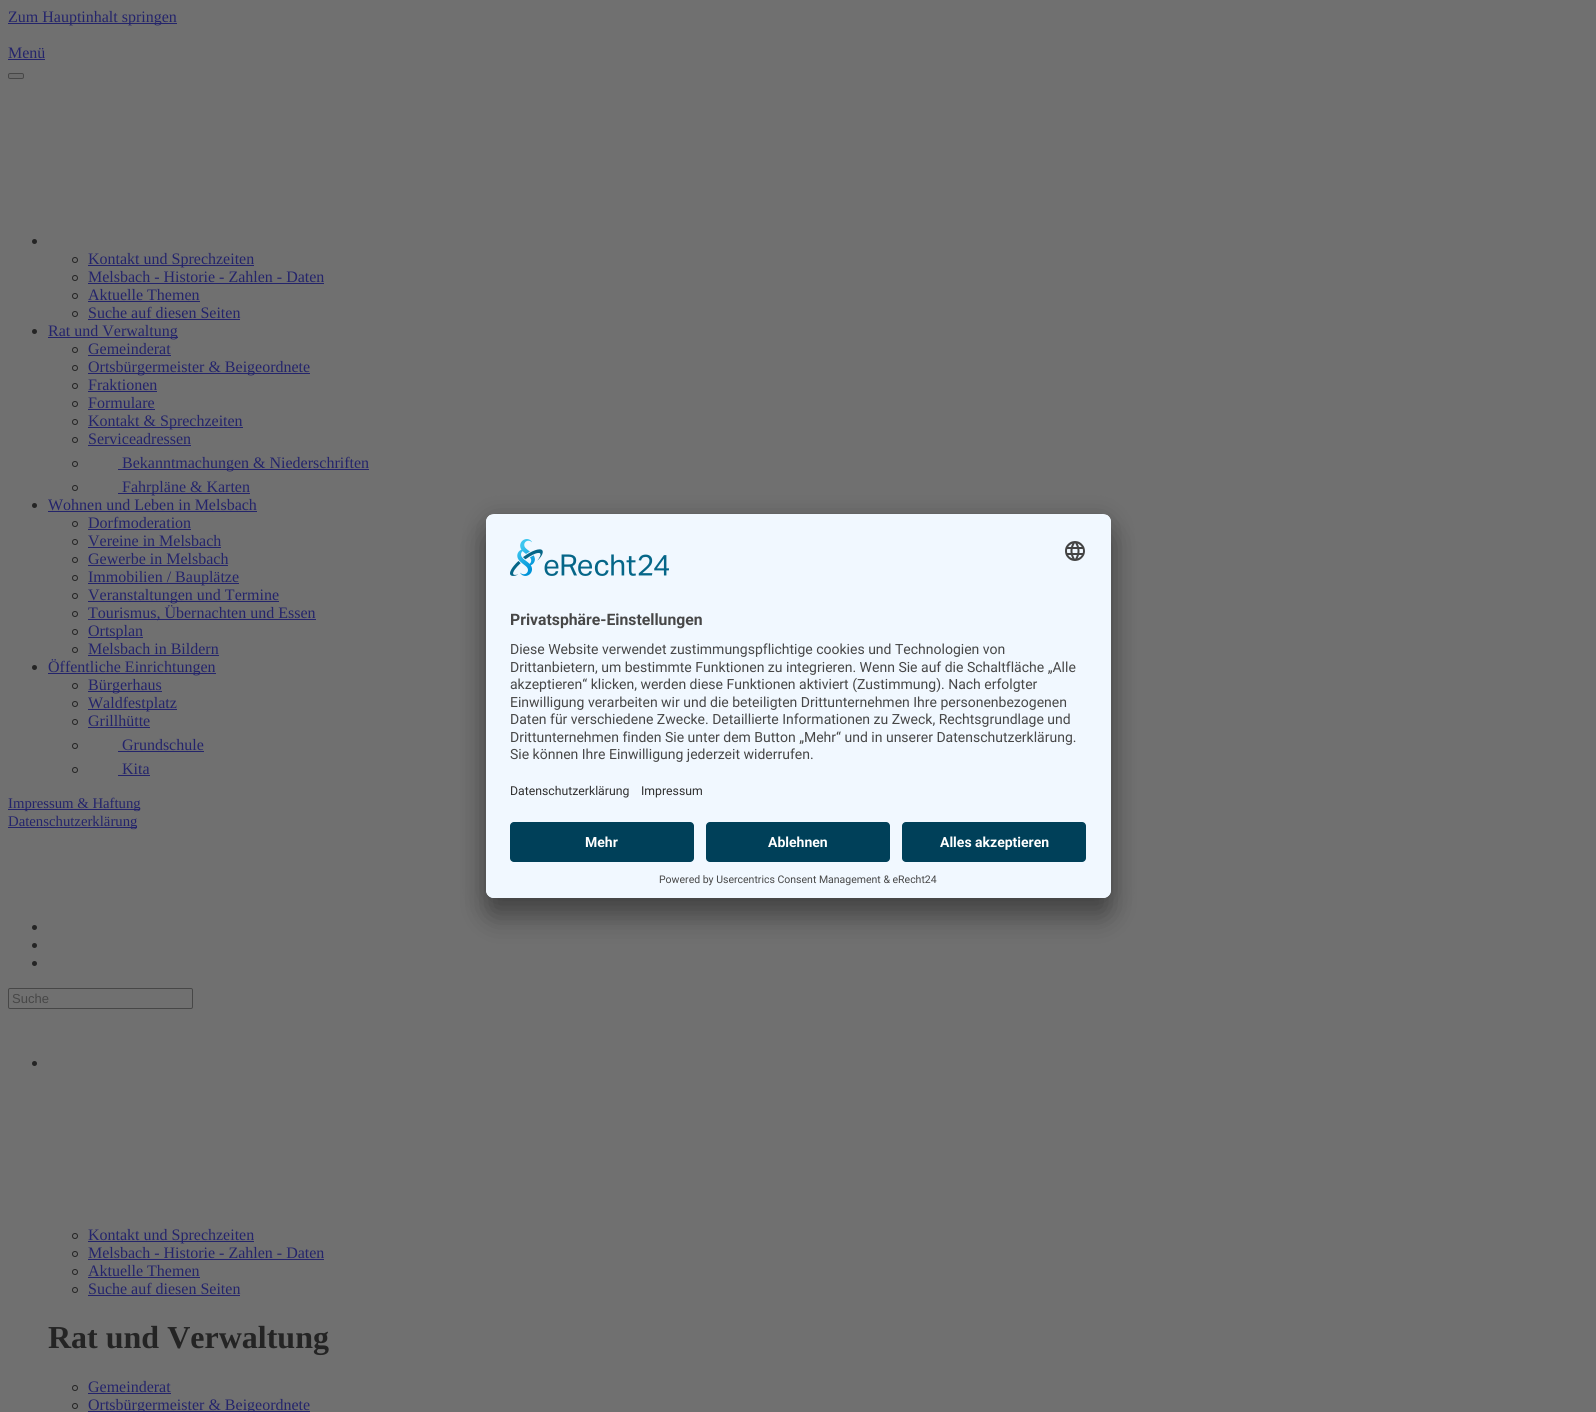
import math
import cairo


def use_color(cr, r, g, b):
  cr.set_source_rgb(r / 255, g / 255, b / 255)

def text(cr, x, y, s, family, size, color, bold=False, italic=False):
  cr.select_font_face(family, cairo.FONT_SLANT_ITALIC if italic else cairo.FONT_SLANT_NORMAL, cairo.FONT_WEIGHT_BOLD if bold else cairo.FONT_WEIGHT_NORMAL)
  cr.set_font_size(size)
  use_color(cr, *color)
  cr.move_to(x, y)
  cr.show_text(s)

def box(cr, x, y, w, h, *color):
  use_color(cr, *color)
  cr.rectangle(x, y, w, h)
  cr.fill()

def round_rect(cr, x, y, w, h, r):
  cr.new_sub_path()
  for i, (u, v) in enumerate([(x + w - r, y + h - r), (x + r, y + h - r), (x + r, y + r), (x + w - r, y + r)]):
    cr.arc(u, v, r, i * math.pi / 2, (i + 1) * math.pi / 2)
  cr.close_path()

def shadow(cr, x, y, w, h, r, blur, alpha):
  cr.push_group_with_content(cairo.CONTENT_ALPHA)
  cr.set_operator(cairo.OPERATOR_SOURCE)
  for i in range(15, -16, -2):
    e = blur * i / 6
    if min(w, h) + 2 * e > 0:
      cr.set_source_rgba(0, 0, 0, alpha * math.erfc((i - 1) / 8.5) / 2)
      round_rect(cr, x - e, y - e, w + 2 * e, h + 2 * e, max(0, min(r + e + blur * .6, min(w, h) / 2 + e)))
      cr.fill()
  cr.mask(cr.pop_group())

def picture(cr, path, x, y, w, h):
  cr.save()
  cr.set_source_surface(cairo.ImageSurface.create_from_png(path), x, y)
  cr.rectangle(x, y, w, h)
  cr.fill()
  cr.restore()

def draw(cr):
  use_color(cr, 112, 112, 112)
  cr.paint()
  box(cr, 8, 23, 169, 1, 36, 36, 107)
  box(cr, 8, 59, 37, 1, 36, 36, 107)
  use_color(cr, 107, 107, 107)
  round_rect(cr, 8.5, 73.5, 15, 5, 1.5)
  cr.fill_preserve()
  use_color(cr, 71, 71, 71)
  cr.set_line_width(1)
  cr.stroke()
  use_color(cr, 36, 36, 36)
  cr.arc(34.5, 241.5, 2.5, 0, 2 * math.pi)
  cr.fill()
  cr.arc(75, 260, 2.5, 0, 2 * math.pi)
  cr.stroke()
  box(cr, 88, 265, 166, 1, 36, 36, 107)
  cr.arc(75, 278, 2.5, 0, 2 * math.pi)
  use_color(cr, 36, 36, 36)
  cr.stroke()
  box(cr, 88, 283, 236, 1, 36, 36, 107)
  cr.arc(75, 296, 2.5, 0, 2 * math.pi)
  use_color(cr, 36, 36, 36)
  cr.stroke()
  box(cr, 88, 301, 112, 1, 36, 36, 107)
  cr.arc(75, 314, 2.5, 0, 2 * math.pi)
  use_color(cr, 36, 36, 36)
  cr.stroke()
  box(cr, 88, 319, 152, 1, 36, 36, 107)
  use_color(cr, 36, 36, 36)
  cr.arc(34.5, 331.5, 2.5, 0, 2 * math.pi)
  cr.fill()
  box(cr, 48, 337, 130, 1, 36, 36, 107)
  cr.arc(75, 350, 2.5, 0, 2 * math.pi)
  use_color(cr, 36, 36, 36)
  cr.stroke()
  box(cr, 88, 355, 83, 1, 36, 36, 107)
  cr.arc(75, 368, 2.5, 0, 2 * math.pi)
  use_color(cr, 36, 36, 36)
  cr.stroke()
  box(cr, 88, 373, 222, 1, 36, 36, 107)
  cr.arc(75, 386, 2.5, 0, 2 * math.pi)
  use_color(cr, 36, 36, 36)
  cr.stroke()
  box(cr, 88, 391, 69, 1, 36, 36, 107)
  cr.arc(75, 404, 2.5, 0, 2 * math.pi)
  use_color(cr, 36, 36, 36)
  cr.stroke()
  box(cr, 88, 409, 67, 1, 36, 36, 107)
  cr.arc(75, 422, 2.5, 0, 2 * math.pi)
  use_color(cr, 36, 36, 36)
  cr.stroke()
  box(cr, 88, 427, 155, 1, 36, 36, 107)
  cr.arc(75, 440, 2.5, 0, 2 * math.pi)
  use_color(cr, 36, 36, 36)
  cr.stroke()
  box(cr, 88, 445, 103, 1, 36, 36, 107)
  cr.arc(75, 464, 2.5, 0, 2 * math.pi)
  use_color(cr, 36, 36, 36)
  cr.stroke()
  box(cr, 118, 469, 251, 1, 36, 36, 107)
  cr.arc(75, 488, 2.5, 0, 2 * math.pi)
  use_color(cr, 36, 36, 36)
  cr.stroke()
  box(cr, 118, 493, 132, 1, 36, 36, 107)
  use_color(cr, 36, 36, 36)
  cr.arc(34.5, 505.5, 2.5, 0, 2 * math.pi)
  cr.fill()
  box(cr, 48, 511, 209, 1, 36, 36, 107)
  cr.arc(75, 524, 2.5, 0, 2 * math.pi)
  use_color(cr, 36, 36, 36)
  cr.stroke()
  box(cr, 88, 529, 103, 1, 36, 36, 107)
  cr.arc(75, 542, 2.5, 0, 2 * math.pi)
  use_color(cr, 36, 36, 36)
  cr.stroke()
  box(cr, 88, 547, 133, 1, 36, 36, 107)
  cr.arc(75, 560, 2.5, 0, 2 * math.pi)
  use_color(cr, 36, 36, 36)
  cr.stroke()
  box(cr, 88, 565, 140, 1, 36, 36, 107)
  cr.arc(75, 578, 2.5, 0, 2 * math.pi)
  use_color(cr, 36, 36, 36)
  cr.stroke()
  box(cr, 88, 583, 151, 1, 36, 36, 107)
  cr.arc(75, 596, 2.5, 0, 2 * math.pi)
  use_color(cr, 36, 36, 36)
  cr.stroke()
  box(cr, 88, 601, 191, 1, 36, 36, 107)
  cr.arc(75, 614, 2.5, 0, 2 * math.pi)
  use_color(cr, 36, 36, 36)
  cr.stroke()
  box(cr, 88, 619, 228, 1, 36, 36, 107)
  cr.arc(75, 632, 2.5, 0, 2 * math.pi)
  use_color(cr, 36, 36, 36)
  cr.stroke()
  box(cr, 88, 637, 55, 1, 36, 36, 107)
  cr.arc(75, 650, 2.5, 0, 2 * math.pi)
  use_color(cr, 36, 36, 36)
  cr.stroke()
  box(cr, 88, 655, 131, 1, 36, 36, 107)
  use_color(cr, 36, 36, 36)
  cr.arc(34.5, 667.5, 2.5, 0, 2 * math.pi)
  cr.fill()
  box(cr, 48, 673, 168, 1, 36, 36, 107)
  cr.arc(75, 686, 2.5, 0, 2 * math.pi)
  use_color(cr, 36, 36, 36)
  cr.stroke()
  box(cr, 88, 691, 74, 1, 36, 36, 107)
  cr.arc(75, 704, 2.5, 0, 2 * math.pi)
  use_color(cr, 36, 36, 36)
  cr.stroke()
  box(cr, 88, 709, 89, 1, 36, 36, 107)
  cr.arc(75, 722, 2.5, 0, 2 * math.pi)
  use_color(cr, 36, 36, 36)
  cr.stroke()
  box(cr, 88, 727, 62, 1, 36, 36, 107)
  cr.arc(75, 746, 2.5, 0, 2 * math.pi)
  use_color(cr, 36, 36, 36)
  cr.stroke()
  box(cr, 118, 751, 86, 1, 36, 36, 107)
  cr.arc(75, 770, 2.5, 0, 2 * math.pi)
  use_color(cr, 36, 36, 36)
  cr.stroke()
  box(cr, 118, 775, 32, 1, 36, 36, 107)
  box(cr, 8, 809, 132, 1, 36, 36, 107)
  box(cr, 8, 827, 129, 1, 36, 36, 107)
  use_color(cr, 36, 36, 36)
  cr.arc(34.5, 927.5, 2.5, 0, 2 * math.pi)
  cr.fill()
  cr.arc(34.5, 945.5, 2.5, 0, 2 * math.pi)
  cr.fill()
  cr.arc(34.5, 963.5, 2.5, 0, 2 * math.pi)
  cr.fill()
  round_rect(cr, 8.5, 988.5, 184, 20, 1.5)
  use_color(cr, 71, 71, 71)
  cr.stroke()
  use_color(cr, 36, 36, 36)
  cr.arc(34.5, 1063.5, 2.5, 0, 2 * math.pi)
  cr.fill()
  cr.arc(75, 1236, 2.5, 0, 2 * math.pi)
  cr.stroke()
  box(cr, 88, 1241, 166, 1, 36, 36, 107)
  cr.arc(75, 1254, 2.5, 0, 2 * math.pi)
  use_color(cr, 36, 36, 36)
  cr.stroke()
  box(cr, 88, 1259, 236, 1, 36, 36, 107)
  cr.arc(75, 1272, 2.5, 0, 2 * math.pi)
  use_color(cr, 36, 36, 36)
  cr.stroke()
  box(cr, 88, 1277, 112, 1, 36, 36, 107)
  cr.arc(75, 1290, 2.5, 0, 2 * math.pi)
  use_color(cr, 36, 36, 36)
  cr.stroke()
  box(cr, 88, 1295, 152, 1, 36, 36, 107)
  cr.arc(75, 1388, 2.5, 0, 2 * math.pi)
  use_color(cr, 36, 36, 36)
  cr.stroke()
  box(cr, 88, 1393, 83, 1, 36, 36, 107)
  cr.arc(75, 1406, 2.5, 0, 2 * math.pi)
  use_color(cr, 36, 36, 36)
  cr.stroke()
  box(cr, 88, 1411, 222, 1, 36, 36, 107)
  use_color(cr, 0, 0, 0)
  shadow(cr, 486, 534, 625, 384, 8, 14, 0.3)
  shadow(cr, 486, 519, 625, 384, 8, 13, 0.22)
  use_color(cr, 241, 248, 255)
  round_rect(cr, 486, 514, 625, 384, 8)
  cr.fill()
  cr.save()
  round_rect(cr, 486, 514, 625, 384, 8)
  cr.clip()
  cr.new_path()
  cr.move_to(494, 514)
  cr.line_to(1103, 514)
  cr.curve_to(1107.5, 514, 1111, 517.5, 1111, 522)
  cr.line_to(1111, 814)
  cr.line_to(486, 814)
  cr.line_to(486, 522)
  cr.curve_to(486, 517.5, 489.5, 514, 494, 514)
  cr.close_path()
  cr.clip()
  box(cr, 486, 515, 625, 299, 241, 248, 255)
  cr.restore()
  picture(cr, "img_01.png", 510, 539, 159, 37)
  picture(cr, "img_02.png", 1065, 541, 20, 20)
  cr.new_path()
  cr.move_to(486, 814)
  cr.line_to(1111, 814)
  cr.line_to(1111, 890)
  cr.curve_to(1111, 894.5, 1107.5, 898, 1103, 898)
  cr.line_to(494, 898)
  cr.curve_to(489.5, 898, 486, 894.5, 486, 890)
  cr.close_path()
  cr.fill()
  use_color(cr, 0, 64, 89)
  round_rect(cr, 510, 822, 184, 40, 4)
  cr.fill()
  round_rect(cr, 706, 822, 184, 40, 4)
  cr.fill()
  round_rect(cr, 902, 822, 184, 40, 4)
  cr.fill()
  text(cr, 8, 22, "Zum Hauptinhalt springen", "Liberation Serif", 16, (36, 36, 107))
  text(cr, 8, 58, "Menü", "Liberation Serif", 16, (36, 36, 107))
  text(cr, 88, 264, "Kontakt und Sprechzeiten", "Liberation Serif", 16, (36, 36, 107))
  text(cr, 88, 282, "Melsbach - Historie - Zahlen - Daten", "Liberation Serif", 16, (36, 36, 107))
  text(cr, 88, 300, "Aktuelle Themen", "Liberation Serif", 16, (36, 36, 107))
  text(cr, 88, 318, "Suche auf diesen Seiten", "Liberation Serif", 16, (36, 36, 107))
  text(cr, 48, 336, "Rat und Verwaltung", "Liberation Serif", 16, (36, 36, 107))
  text(cr, 88, 354, "Gemeinderat", "Liberation Serif", 16, (36, 36, 107))
  text(cr, 88, 372, "Ortsbürgermeister & Beigeordnete", "Liberation Serif", 16, (36, 36, 107))
  text(cr, 88, 390, "Fraktionen", "Liberation Serif", 16, (36, 36, 107))
  text(cr, 88, 408, "Formulare", "Liberation Serif", 16, (36, 36, 107))
  text(cr, 88, 426, "Kontakt & Sprechzeiten", "Liberation Serif", 16, (36, 36, 107))
  text(cr, 88, 444, "Serviceadressen", "Liberation Serif", 16, (36, 36, 107))
  text(cr, 122, 468, "Bekanntmachungen & Niederschriften", "Liberation Serif", 16, (36, 36, 107))
  text(cr, 122, 492, "Fahrpläne & Karten", "Liberation Serif", 16, (36, 36, 107))
  text(cr, 48, 510, "Wohnen und Leben in Melsbach", "Liberation Serif", 16, (36, 36, 107))
  text(cr, 88, 528, "Dorfmoderation", "Liberation Serif", 16, (36, 36, 107))
  text(cr, 88, 546, "Vereine in Melsbach", "Liberation Serif", 16, (36, 36, 107))
  text(cr, 88, 564, "Gewerbe in Melsbach", "Liberation Serif", 16, (36, 36, 107))
  text(cr, 88, 582, "Immobilien / Bauplätze", "Liberation Serif", 16, (36, 36, 107))
  text(cr, 88, 600, "Veranstaltungen und Termine", "Liberation Serif", 16, (36, 36, 107))
  text(cr, 88, 618, "Tourismus, Übernachten und Essen", "Liberation Serif", 16, (36, 36, 107))
  text(cr, 88, 636, "Ortsplan", "Liberation Serif", 16, (36, 36, 107))
  text(cr, 88, 654, "Melsbach in Bildern", "Liberation Serif", 16, (36, 36, 107))
  text(cr, 48, 672, "Öffentliche Einrichtungen", "Liberation Serif", 16, (36, 36, 107))
  text(cr, 88, 690, "Bürgerhaus", "Liberation Serif", 16, (36, 36, 107))
  text(cr, 88, 708, "Waldfestplatz", "Liberation Serif", 16, (36, 36, 107))
  text(cr, 88, 726, "Grillhütte", "Liberation Serif", 16, (36, 36, 107))
  text(cr, 122, 750, "Grundschule", "Liberation Serif", 16, (36, 36, 107))
  text(cr, 122, 774, "Kita", "Liberation Serif", 16, (36, 36, 107))
  text(cr, 8, 808, "Impressum & Haftung", "Liberation Serif", 14.75, (36, 36, 107))
  text(cr, 8, 826, "Datenschutzerklärung", "Liberation Serif", 14.75, (36, 36, 107))
  text(cr, 12, 1003, "Suche", "Liberation Sans", 13, (71, 71, 71))
  text(cr, 88, 1240, "Kontakt und Sprechzeiten", "Liberation Serif", 16, (36, 36, 107))
  text(cr, 88, 1258, "Melsbach - Historie - Zahlen - Daten", "Liberation Serif", 16, (36, 36, 107))
  text(cr, 88, 1276, "Aktuelle Themen", "Liberation Serif", 16, (36, 36, 107))
  text(cr, 88, 1294, "Suche auf diesen Seiten", "Liberation Serif", 16, (36, 36, 107))
  text(cr, 48, 1348, "Rat und Verwaltung", "Liberation Serif", 32, (36, 36, 36), bold=True)
  text(cr, 88, 1392, "Gemeinderat", "Liberation Serif", 16, (36, 36, 107))
  text(cr, 88, 1410, "Ortsbürgermeister & Beigeordnete", "Liberation Serif", 16, (36, 36, 107))
  text(cr, 510, 625, "Privatsphäre-Einstellungen", "Roboto", 15.75, (71, 71, 71), bold=True)
  text(cr, 510, 654, "Diese Website verwendet zustimmungspflichtige cookies und Technologien von", "Roboto", 14, (71, 71, 71))
  text(cr, 510, 672, "Drittanbietern, um bestimmte Funktionen zu integrieren. Wenn Sie auf die Schaltfläche „Alle", "Roboto", 14, (71, 71, 71))
  text(cr, 510, 689, "akzeptieren“ klicken, werden diese Funktionen aktiviert (Zustimmung). Nach erfolgter", "Roboto", 14, (71, 71, 71))
  text(cr, 510, 707, "Einwilligung verarbeiten wir und die beteiligten Drittunternehmen Ihre personenbezogenen", "Roboto", 14, (71, 71, 71))
  text(cr, 510, 724, "Daten für verschiedene Zwecke. Detaillierte Informationen zu Zweck, Rechtsgrundlage und", "Roboto", 14, (71, 71, 71))
  text(cr, 510, 742, "Drittunternehmen finden Sie unter dem Button „Mehr“ und in unserer Datenschutzerklärung.", "Roboto", 14, (71, 71, 71))
  text(cr, 510, 759, "Sie können Ihre Einwilligung jederzeit widerrufen.", "Roboto", 14, (71, 71, 71))
  text(cr, 510, 795, "Datenschutzerklärung", "Roboto", 12.25, (48, 48, 48))
  text(cr, 641, 795, "Impressum", "Roboto", 12.25, (48, 48, 48))
  text(cr, 585, 847, "Mehr", "Roboto", 14, (255, 255, 255), bold=True)
  text(cr, 768, 847, "Ablehnen", "Roboto", 14, (255, 255, 255), bold=True)
  text(cr, 940, 847, "Alles akzeptieren", "Roboto", 14, (255, 255, 255), bold=True)
  text(cr, 659, 883, "Powered by Usercentrics Consent Management & eRecht24", "Roboto", 10.5, (71, 71, 71))


surface = cairo.ImageSurface(cairo.FORMAT_RGB24, 1596, 1412)
cr = cairo.Context(surface)
options = cairo.FontOptions()
options.set_hint_metrics(cairo.HINT_METRICS_OFF)
options.set_hint_style(cairo.HINT_STYLE_NONE)
cr.set_font_options(options)
cr.set_miter_limit(4)
draw(cr)
surface.write_to_png("out.png")
